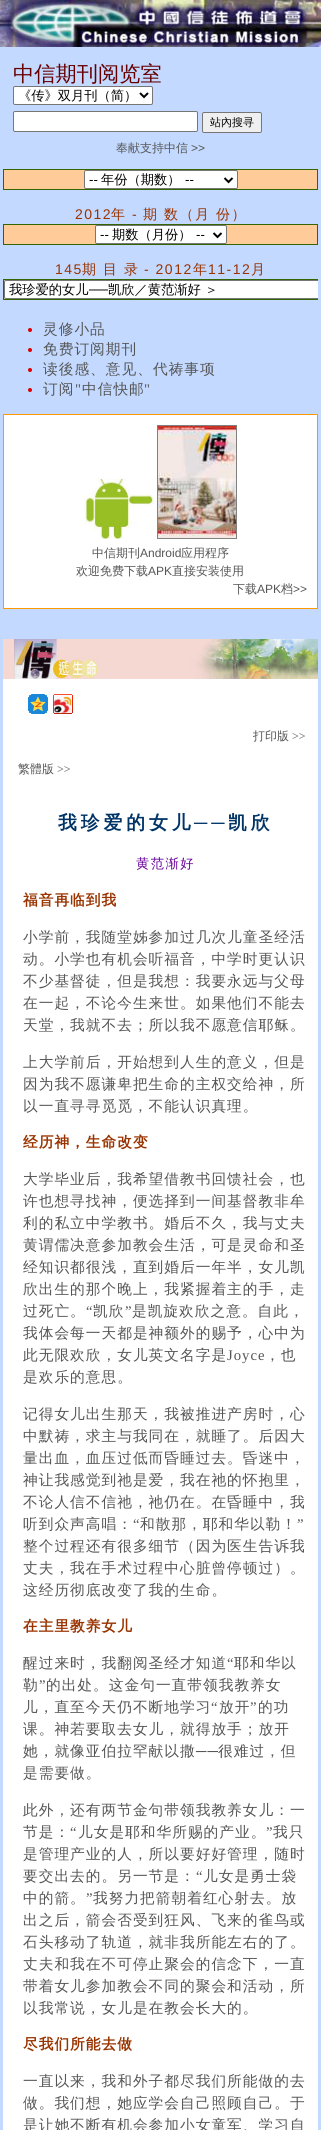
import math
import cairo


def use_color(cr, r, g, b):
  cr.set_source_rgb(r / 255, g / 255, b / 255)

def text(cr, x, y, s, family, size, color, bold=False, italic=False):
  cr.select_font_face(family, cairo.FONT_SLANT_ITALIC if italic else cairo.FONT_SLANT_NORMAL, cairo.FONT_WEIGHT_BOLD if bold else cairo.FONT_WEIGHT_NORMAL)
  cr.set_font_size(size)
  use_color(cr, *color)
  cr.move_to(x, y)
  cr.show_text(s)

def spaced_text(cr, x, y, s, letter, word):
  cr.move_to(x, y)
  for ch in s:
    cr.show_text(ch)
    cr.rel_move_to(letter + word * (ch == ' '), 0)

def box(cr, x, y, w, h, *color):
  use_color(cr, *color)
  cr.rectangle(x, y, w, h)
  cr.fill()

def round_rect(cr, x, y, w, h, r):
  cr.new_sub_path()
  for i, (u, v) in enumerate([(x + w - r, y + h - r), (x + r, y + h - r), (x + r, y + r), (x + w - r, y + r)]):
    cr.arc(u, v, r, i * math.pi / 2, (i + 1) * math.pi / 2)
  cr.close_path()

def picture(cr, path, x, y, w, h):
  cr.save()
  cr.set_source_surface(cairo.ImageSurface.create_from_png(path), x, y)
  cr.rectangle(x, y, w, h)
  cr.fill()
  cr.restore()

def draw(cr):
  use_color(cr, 195, 217, 255)
  cr.paint()
  picture(cr, "img_01.png", 0, 0, 321, 47)
  use_color(cr, 255, 255, 255)
  round_rect(cr, 13.5, 86.5, 139, 18, 1.5)
  cr.fill_preserve()
  use_color(cr, 118, 118, 118)
  cr.set_line_width(1)
  cr.stroke()
  cr.new_path()
  cr.move_to(140, 93)
  cr.line_to(144, 97)
  cr.line_to(148, 93)
  use_color(cr, 0, 0, 0)
  cr.set_line_width(2)
  cr.stroke()
  use_color(cr, 255, 255, 255)
  round_rect(cr, 13.5, 111.5, 184, 20, 1.5)
  cr.fill_preserve()
  use_color(cr, 118, 118, 118)
  cr.set_line_width(1)
  cr.stroke()
  use_color(cr, 239, 239, 239)
  round_rect(cr, 202.5, 112.5, 59, 20, 1.5)
  cr.fill_preserve()
  use_color(cr, 118, 118, 118)
  cr.stroke()
  use_color(cr, 255, 204, 153)
  cr.rectangle(3.5, 169.5, 314, 20)
  cr.fill_preserve()
  use_color(cr, 51, 102, 0)
  cr.stroke()
  use_color(cr, 255, 255, 255)
  round_rect(cr, 84.5, 170.5, 153, 18, 1.5)
  cr.fill_preserve()
  use_color(cr, 118, 118, 118)
  cr.stroke()
  cr.new_path()
  cr.move_to(224.5, 178)
  cr.line_to(228.5, 182)
  cr.line_to(232.5, 178)
  use_color(cr, 0, 0, 0)
  cr.set_line_width(2)
  cr.stroke()
  use_color(cr, 255, 204, 153)
  cr.rectangle(3.5, 224.5, 314, 20)
  cr.fill_preserve()
  use_color(cr, 51, 102, 0)
  cr.set_line_width(1)
  cr.stroke()
  use_color(cr, 255, 255, 255)
  round_rect(cr, 95.5, 225.5, 131, 18, 1.5)
  cr.fill_preserve()
  use_color(cr, 118, 118, 118)
  cr.stroke()
  cr.new_path()
  cr.move_to(213.5, 233)
  cr.line_to(217.5, 237)
  cr.line_to(221.5, 233)
  use_color(cr, 0, 0, 0)
  cr.set_line_width(2)
  cr.stroke()
  box(cr, 4, 280, 2, 19, 255, 204, 153)
  cr.rectangle(3.5, 279.5, 314, 20)
  use_color(cr, 51, 102, 0)
  cr.set_line_width(1)
  cr.stroke()
  use_color(cr, 255, 255, 255)
  cr.new_path()
  cr.move_to(6, 280)
  cr.line_to(318, 280)
  cr.line_to(318, 299)
  cr.line_to(6, 299)
  cr.curve_to(5, 299, 4, 298, 4, 297)
  cr.line_to(4, 282)
  cr.curve_to(4, 281, 5, 280, 6, 280)
  cr.close_path()
  cr.fill()
  cr.save()
  cr.rectangle(3, 190, 315, 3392)
  cr.clip()
  round_rect(cr, 4.5, 280.5, 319, 18, 1.5)
  use_color(cr, 118, 118, 118)
  cr.stroke()
  cr.restore()
  use_color(cr, 221, 0, 0)
  cr.arc(30, 330, 2, 0, 2 * math.pi)
  cr.fill()
  cr.arc(30, 350, 2, 0, 2 * math.pi)
  cr.fill()
  cr.arc(30, 370, 2, 0, 2 * math.pi)
  cr.fill()
  cr.arc(30, 390, 2, 0, 2 * math.pi)
  cr.fill()
  use_color(cr, 255, 255, 255)
  cr.rectangle(3.5, 414.5, 314, 194)
  cr.fill_preserve()
  use_color(cr, 255, 153, 0)
  cr.stroke()
  cr.rectangle(157.5, 425.5, 79, 113)
  use_color(cr, 128, 128, 128)
  cr.stroke()
  picture(cr, "img_02.png", 84, 479, 70, 60)
  picture(cr, "img_03.png", 158, 426, 78, 112)
  box(cr, 3, 679, 315, 1451, 255, 255, 255)
  picture(cr, "img_04.png", 3, 639, 315, 40)
  picture(cr, "img_05.png", 28, 694, 20, 20)
  picture(cr, "img_06.png", 53, 694, 20, 20)
  text(cr, 13, 81, "中信期刊阅览室", "WenQuanYi Zen Hei Medium", 21.25, (102, 0, 0))
  text(cr, 18, 100, "《传》双月刊（简）", "WenQuanYi Zen Hei Medium", 13.25, (0, 0, 0))
  text(cr, 210, 126, "站內搜寻", "WenQuanYi Zen Hei Medium", 11, (0, 0, 0))
  text(cr, 116, 152, "奉献支持中信", "WenQuanYi Zen Hei Medium", 12, (85, 85, 85))
  text(cr, 191, 152, ">>", "Liberation Sans", 12, (85, 85, 85))
  text(cr, 89, 184, "--", "Liberation Sans", 13.25, (0, 0, 0))
  text(cr, 101, 184, "年份（期数）", "WenQuanYi Zen Hei Medium", 13.25, (0, 0, 0))
  text(cr, 185, 184, "--", "Liberation Sans", 13.25, (0, 0, 0))
  cr.set_font_size(14)
  use_color(cr, 153, 51, 0)
  spaced_text(cr, 75, 219, "2012", 1.5, 0)
  cr.select_font_face("WenQuanYi Zen Hei Medium")
  spaced_text(cr, 111, 219, "年", 1.5, 0)
  cr.select_font_face("Liberation Sans")
  spaced_text(cr, 132, 219, "-", 1.5, 0)
  cr.select_font_face("WenQuanYi Zen Hei Medium")
  spaced_text(cr, 143, 219, "期", 1.5, 0)
  spaced_text(cr, 164, 219, "数（月", 1.5, 0)
  spaced_text(cr, 216, 219, "份）", 1.5, 0)
  text(cr, 100, 239, "--", "Liberation Sans", 13.25, (0, 0, 0))
  text(cr, 112, 239, "期数（月份）", "WenQuanYi Zen Hei Medium", 13.25, (0, 0, 0))
  text(cr, 196, 239, "--", "Liberation Sans", 13.25, (0, 0, 0))
  cr.set_font_size(14)
  use_color(cr, 153, 51, 0)
  spaced_text(cr, 55, 274, "145", 1.5, 0)
  cr.select_font_face("WenQuanYi Zen Hei Medium")
  spaced_text(cr, 82, 274, "期", 1.5, 0)
  spaced_text(cr, 103, 274, "目", 1.5, 0)
  spaced_text(cr, 124, 274, "录", 1.5, 0)
  cr.select_font_face("Liberation Sans")
  spaced_text(cr, 144, 274, "- 2012", 1.5, 0)
  cr.select_font_face("WenQuanYi Zen Hei Medium")
  spaced_text(cr, 193, 274, "年", 1.5, 0)
  cr.select_font_face("Liberation Sans")
  spaced_text(cr, 208, 274, "11-12", 1.5, 0)
  cr.select_font_face("WenQuanYi Zen Hei Medium")
  spaced_text(cr, 251, 274, "月", 1.5, 0)
  text(cr, 9, 294, "我珍爱的女儿", "WenQuanYi Zen Hei Medium", 13.25, (0, 0, 0))
  text(cr, 89, 294, "──", "Liberation Sans", 13.25, (0, 0, 0))
  text(cr, 108, 294, "凯欣／黄范渐好 ＞", "WenQuanYi Zen Hei Medium", 13.25, (0, 0, 0))
  cr.set_font_size(14.7)
  use_color(cr, 85, 85, 85)
  spaced_text(cr, 43, 334, "灵修小品", 1, 0)
  spaced_text(cr, 43, 354, "免费订阅期刊", 1, 0)
  spaced_text(cr, 43, 374, "读後感、意见、代祷事项", 1, 0)
  spaced_text(cr, 43, 394, "订阅", 1, 0)
  cr.select_font_face("Liberation Serif")
  spaced_text(cr, 75, 394, "\"", 1, 0)
  cr.select_font_face("WenQuanYi Zen Hei Medium")
  spaced_text(cr, 82, 394, "中信快邮", 1, 0)
  cr.select_font_face("Liberation Serif")
  spaced_text(cr, 144, 394, "\"", 1, 0)
  text(cr, 92, 557, "中信期刊", "WenQuanYi Zen Hei Medium", 12, (85, 85, 85))
  text(cr, 140, 557, "Android", "Liberation Sans", 12, (85, 85, 85))
  text(cr, 181, 557, "应用程序", "WenQuanYi Zen Hei Medium", 12, (85, 85, 85))
  text(cr, 76, 575, "欢迎免费下载", "WenQuanYi Zen Hei Medium", 12, (85, 85, 85))
  text(cr, 148, 575, "APK", "Liberation Sans", 12, (85, 85, 85))
  text(cr, 172, 575, "直接安装使用", "WenQuanYi Zen Hei Medium", 12, (85, 85, 85))
  text(cr, 233, 593, "下载", "WenQuanYi Zen Hei Medium", 12, (85, 85, 85))
  text(cr, 257, 593, "APK", "Liberation Sans", 12, (85, 85, 85))
  text(cr, 281, 593, "档", "WenQuanYi Zen Hei Medium", 12, (85, 85, 85))
  text(cr, 293, 593, ">>", "Liberation Sans", 12, (85, 85, 85))
  text(cr, 253, 740, "打印版", "WenQuanYi Zen Hei Medium", 12, (85, 85, 85))
  text(cr, 292, 740, ">>", "Liberation Serif", 12, (85, 85, 85))
  text(cr, 18, 773, "繁體版", "WenQuanYi Zen Hei Medium", 12, (85, 85, 85))
  text(cr, 57, 773, ">>", "Liberation Serif", 12, (85, 85, 85))
  cr.select_font_face("WenQuanYi Zen Hei", cairo.FONT_SLANT_NORMAL, cairo.FONT_WEIGHT_BOLD)
  cr.set_font_size(18.75)
  use_color(cr, 0, 51, 102)
  spaced_text(cr, 58, 829, "我珍爱的女儿", 4, 0)
  cr.select_font_face("Liberation Sans", cairo.FONT_SLANT_NORMAL, cairo.FONT_WEIGHT_BOLD)
  spaced_text(cr, 194, 829, "──", 4, 0)
  cr.select_font_face("WenQuanYi Zen Hei", cairo.FONT_SLANT_NORMAL, cairo.FONT_WEIGHT_BOLD)
  spaced_text(cr, 228, 829, "凯欣", 4, 0)
  cr.select_font_face("WenQuanYi Zen Hei Medium")
  cr.set_font_size(13.25)
  use_color(cr, 102, 0, 153)
  spaced_text(cr, 136, 868, "黄范渐好", 1.5, 0)
  cr.select_font_face("WenQuanYi Zen Hei", cairo.FONT_SLANT_NORMAL, cairo.FONT_WEIGHT_BOLD)
  cr.set_font_size(14.7)
  use_color(cr, 153, 51, 0)
  spaced_text(cr, 23, 905, "福音再临到我", 1, 0)
  cr.select_font_face("WenQuanYi Zen Hei Medium")
  use_color(cr, 85, 85, 85)
  spaced_text(cr, 23, 942, "小学前，我随堂姊参加过几次儿童圣经活", 1, 0)
  spaced_text(cr, 23, 964, "动。小学也有机会听福音，中学时更认识", 1, 0)
  spaced_text(cr, 23, 986, "不少基督徒，但是我想：我要永远与父母", 1, 0)
  spaced_text(cr, 23, 1008, "在一起，不论今生来世。如果他们不能去", 1, 0)
  spaced_text(cr, 23, 1030, "天堂，我就不去；所以我不愿意信耶稣。", 1, 0)
  spaced_text(cr, 23, 1067, "上大学前后，开始想到人生的意义，但是", 1, 0)
  spaced_text(cr, 23, 1089, "因为我不愿谦卑把生命的主权交给神，所", 1, 0)
  spaced_text(cr, 23, 1111, "以一直寻寻觅觅，不能认识真理。", 1, 0)
  cr.select_font_face("WenQuanYi Zen Hei", cairo.FONT_SLANT_NORMAL, cairo.FONT_WEIGHT_BOLD)
  use_color(cr, 153, 51, 0)
  spaced_text(cr, 23, 1147, "经历神，生命改变", 1, 0)
  cr.select_font_face("WenQuanYi Zen Hei Medium")
  use_color(cr, 85, 85, 85)
  spaced_text(cr, 23, 1184, "大学毕业后，我希望借教书回馈社会，也", 1, 0)
  spaced_text(cr, 23, 1206, "许也想寻找神，便选择到一间基督教非牟", 1, 0)
  spaced_text(cr, 23, 1228, "利的私立中学教书。婚后不久，我与丈夫", 1, 0)
  spaced_text(cr, 23, 1250, "黄谓儒决意参加教会生活，可是灵命和圣", 1, 0)
  spaced_text(cr, 23, 1272, "经知识都很浅，直到婚后一年半，女儿凯", 1, 0)
  spaced_text(cr, 23, 1294, "欣出生的那个晚上，我紧握着主的手，走", 1, 0)
  spaced_text(cr, 23, 1316, "过死亡。", 1, 0)
  cr.select_font_face("Liberation Serif")
  spaced_text(cr, 86, 1316, "“", 1, 0)
  cr.select_font_face("WenQuanYi Zen Hei Medium")
  spaced_text(cr, 93, 1316, "凯欣", 1, 0)
  cr.select_font_face("Liberation Serif")
  spaced_text(cr, 125, 1316, "”", 1, 0)
  cr.select_font_face("WenQuanYi Zen Hei Medium")
  spaced_text(cr, 132, 1316, "是凯旋欢欣之意。自此，", 1, 0)
  spaced_text(cr, 23, 1338, "我体会每一天都是神额外的赐予，心中为", 1, 0)
  spaced_text(cr, 23, 1360, "此无限欢欣，女儿英文名字是", 1, 0)
  cr.select_font_face("Liberation Serif")
  spaced_text(cr, 227, 1360, "Joyce", 1, 0)
  cr.select_font_face("WenQuanYi Zen Hei Medium")
  spaced_text(cr, 265, 1360, "，也", 1, 0)
  spaced_text(cr, 23, 1382, "是欢乐的意思。", 1, 0)
  spaced_text(cr, 23, 1419, "记得女儿出生那天，我被推进产房时，心", 1, 0)
  spaced_text(cr, 23, 1441, "中默祷，求主与我同在，就睡了。后因大", 1, 0)
  spaced_text(cr, 23, 1463, "量出血，血压过低而昏睡过去。昏迷中，", 1, 0)
  spaced_text(cr, 23, 1485, "神让我感觉到祂是爱，我在祂的怀抱里，", 1, 0)
  spaced_text(cr, 23, 1507, "不论人信不信祂，祂仍在。在昏睡中，我", 1, 0)
  spaced_text(cr, 23, 1529, "听到众声高唱：", 1, 0)
  cr.select_font_face("Liberation Serif")
  spaced_text(cr, 133, 1529, "“", 1, 0)
  cr.select_font_face("WenQuanYi Zen Hei Medium")
  spaced_text(cr, 140, 1529, "和散那，耶和华以勒！", 1, 0)
  cr.select_font_face("Liberation Serif")
  spaced_text(cr, 297, 1529, "”", 1, 0)
  cr.select_font_face("WenQuanYi Zen Hei Medium")
  spaced_text(cr, 23, 1551, "整个过程还有很多细节（因为医生告诉我", 1, 0)
  spaced_text(cr, 23, 1573, "丈夫，我在手术过程中心脏曾停顿过）。", 1, 0)
  spaced_text(cr, 23, 1595, "这经历彻底改变了我的生命。", 1, 0)
  cr.select_font_face("WenQuanYi Zen Hei", cairo.FONT_SLANT_NORMAL, cairo.FONT_WEIGHT_BOLD)
  use_color(cr, 153, 51, 0)
  spaced_text(cr, 23, 1631, "在主里教养女儿", 1, 0)
  cr.select_font_face("WenQuanYi Zen Hei Medium")
  use_color(cr, 85, 85, 85)
  spaced_text(cr, 23, 1668, "醒过来时，我翻阅圣经才知道", 1, 0)
  cr.select_font_face("Liberation Serif")
  spaced_text(cr, 227, 1668, "“", 1, 0)
  cr.select_font_face("WenQuanYi Zen Hei Medium")
  spaced_text(cr, 234, 1668, "耶和华以", 1, 0)
  spaced_text(cr, 23, 1690, "勒", 1, 0)
  cr.select_font_face("Liberation Serif")
  spaced_text(cr, 39, 1690, "”", 1, 0)
  cr.select_font_face("WenQuanYi Zen Hei Medium")
  spaced_text(cr, 46, 1690, "的出处。这金句一直带领我教养女", 1, 0)
  spaced_text(cr, 23, 1712, "儿，直至今天仍不断地学习", 1, 0)
  cr.select_font_face("Liberation Serif")
  spaced_text(cr, 211, 1712, "“", 1, 0)
  cr.select_font_face("WenQuanYi Zen Hei Medium")
  spaced_text(cr, 219, 1712, "放开", 1, 0)
  cr.select_font_face("Liberation Serif")
  spaced_text(cr, 250, 1712, "”", 1, 0)
  cr.select_font_face("WenQuanYi Zen Hei Medium")
  spaced_text(cr, 258, 1712, "的功", 1, 0)
  spaced_text(cr, 23, 1734, "课。神若要取去女儿，就得放手；放开", 1, 0)
  spaced_text(cr, 23, 1756, "她，就像亚伯拉罕献以撒", 1, 0)
  cr.select_font_face("Liberation Serif")
  spaced_text(cr, 196, 1756, "──", 1, 0)
  cr.select_font_face("WenQuanYi Zen Hei Medium")
  spaced_text(cr, 218, 1756, "很难过，但", 1, 0)
  spaced_text(cr, 23, 1778, "是需要做。", 1, 0)
  spaced_text(cr, 23, 1815, "此外，还有两节金句带领我教养女儿：一", 1, 0)
  spaced_text(cr, 23, 1837, "节是：", 1, 0)
  cr.select_font_face("Liberation Serif")
  spaced_text(cr, 70, 1837, "“", 1, 0)
  cr.select_font_face("WenQuanYi Zen Hei Medium")
  spaced_text(cr, 78, 1837, "儿女是耶和华所赐的产业。", 1, 0)
  cr.select_font_face("Liberation Serif")
  spaced_text(cr, 266, 1837, "”", 1, 0)
  cr.select_font_face("WenQuanYi Zen Hei Medium")
  spaced_text(cr, 273, 1837, "我只", 1, 0)
  spaced_text(cr, 23, 1859, "是管理产业的人，所以要好好管理，随时", 1, 0)
  spaced_text(cr, 23, 1881, "要交出去的。另一节是：", 1, 0)
  cr.select_font_face("Liberation Serif")
  spaced_text(cr, 196, 1881, "“", 1, 0)
  cr.select_font_face("WenQuanYi Zen Hei Medium")
  spaced_text(cr, 203, 1881, "儿女是勇士袋", 1, 0)
  spaced_text(cr, 23, 1903, "中的箭。", 1, 0)
  cr.select_font_face("Liberation Serif")
  spaced_text(cr, 86, 1903, "”", 1, 0)
  cr.select_font_face("WenQuanYi Zen Hei Medium")
  spaced_text(cr, 93, 1903, "我努力把箭朝着红心射去。放", 1, 0)
  spaced_text(cr, 23, 1925, "出之后，箭会否受到狂风、飞来的雀鸟或", 1, 0)
  spaced_text(cr, 23, 1947, "石头移动了轨道，就非我所能左右的了。", 1, 0)
  spaced_text(cr, 23, 1969, "丈夫和我在不可停止聚会的信念下，一直", 1, 0)
  spaced_text(cr, 23, 1991, "带着女儿参加教会不同的聚会和活动，所", 1, 0)
  spaced_text(cr, 23, 2013, "以我常说，女儿是在教会长大的。", 1, 0)
  cr.select_font_face("WenQuanYi Zen Hei", cairo.FONT_SLANT_NORMAL, cairo.FONT_WEIGHT_BOLD)
  use_color(cr, 153, 51, 0)
  spaced_text(cr, 23, 2049, "尽我们所能去做", 1, 0)
  cr.select_font_face("WenQuanYi Zen Hei Medium")
  use_color(cr, 85, 85, 85)
  spaced_text(cr, 23, 2086, "一直以来，我和外子都尽我们所能做的去", 1, 0)
  spaced_text(cr, 23, 2108, "做。我们想，她应学会自己照顾自己。于", 1, 0)
  spaced_text(cr, 23, 2130, "是让她不断有机会参加小女童军、学习自", 1, 0)


surface = cairo.ImageSurface(cairo.FORMAT_RGB24, 321, 2130)
cr = cairo.Context(surface)
options = cairo.FontOptions()
options.set_hint_metrics(cairo.HINT_METRICS_OFF)
options.set_hint_style(cairo.HINT_STYLE_NONE)
cr.set_font_options(options)
cr.set_miter_limit(4)
draw(cr)
surface.write_to_png("out.png")
